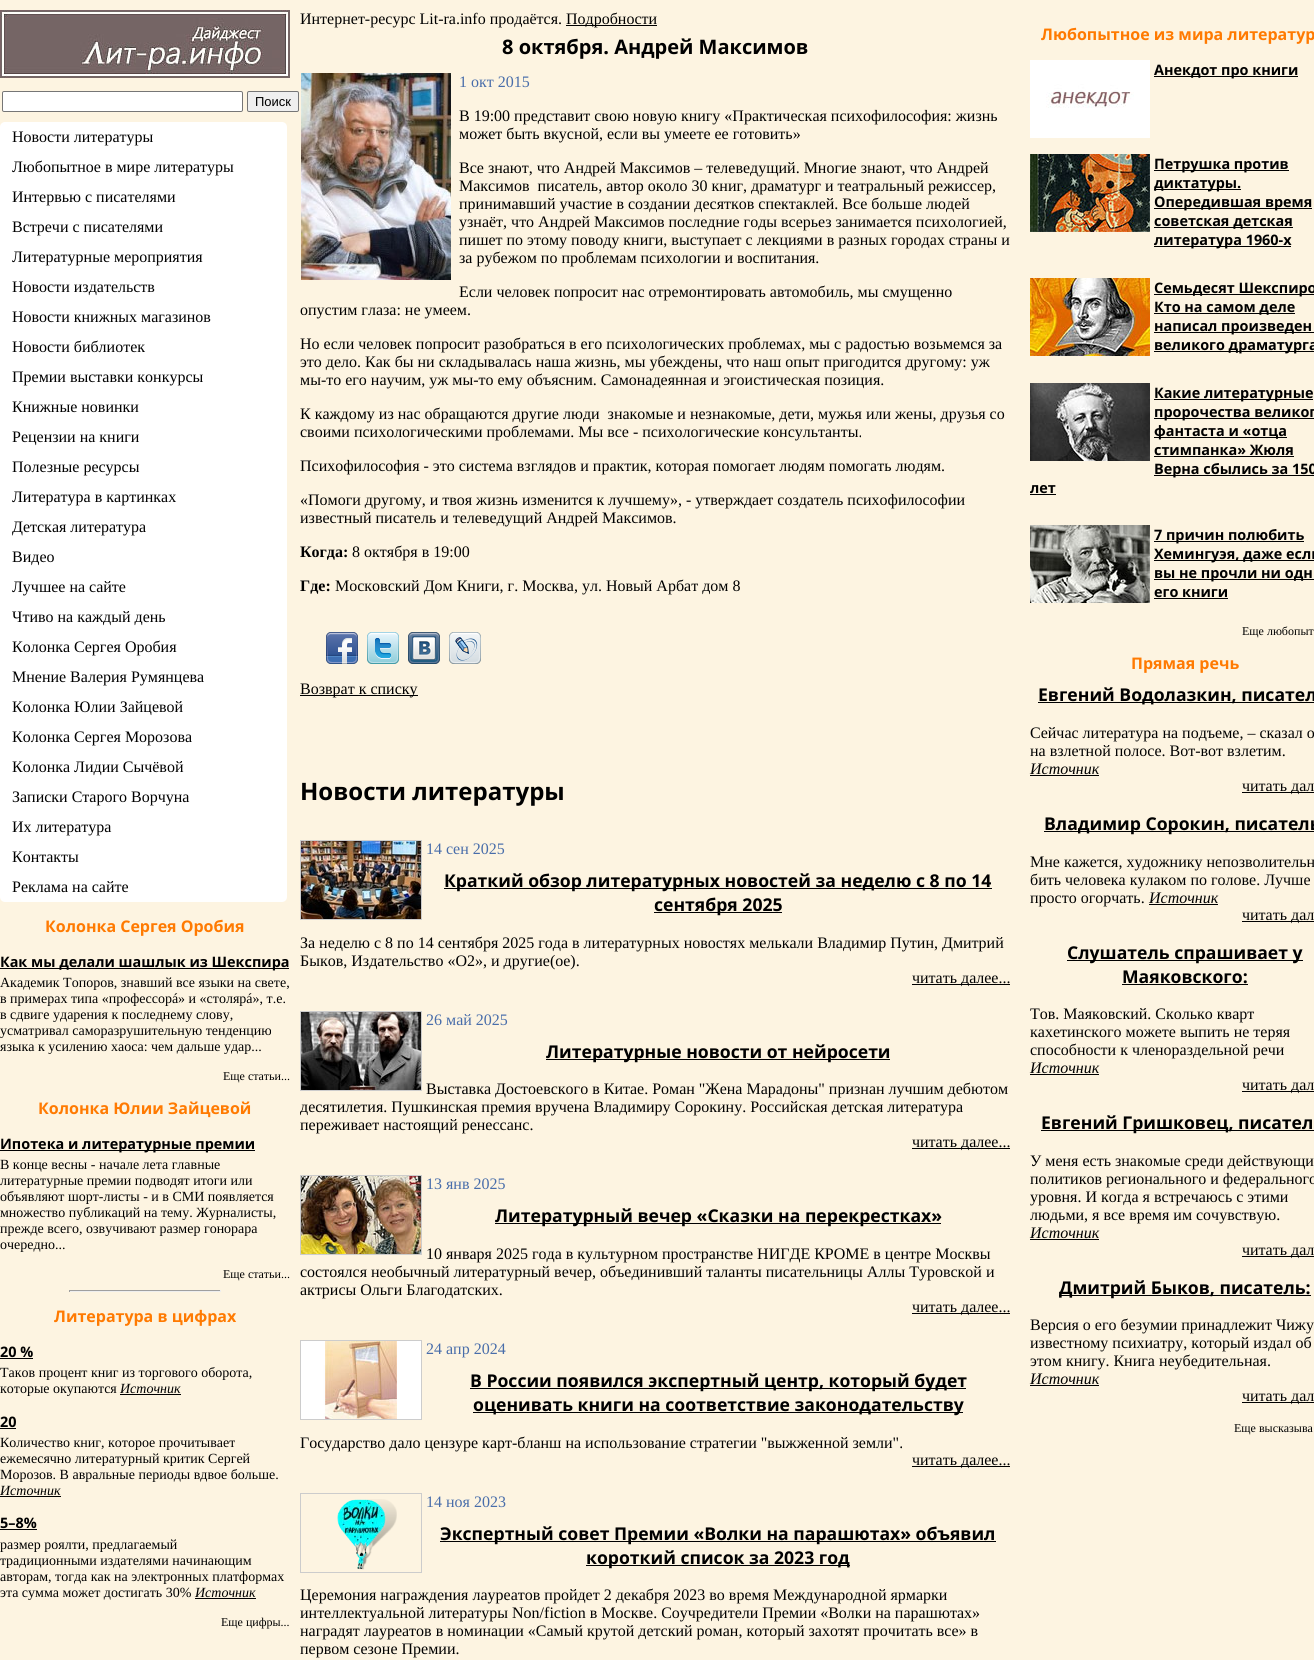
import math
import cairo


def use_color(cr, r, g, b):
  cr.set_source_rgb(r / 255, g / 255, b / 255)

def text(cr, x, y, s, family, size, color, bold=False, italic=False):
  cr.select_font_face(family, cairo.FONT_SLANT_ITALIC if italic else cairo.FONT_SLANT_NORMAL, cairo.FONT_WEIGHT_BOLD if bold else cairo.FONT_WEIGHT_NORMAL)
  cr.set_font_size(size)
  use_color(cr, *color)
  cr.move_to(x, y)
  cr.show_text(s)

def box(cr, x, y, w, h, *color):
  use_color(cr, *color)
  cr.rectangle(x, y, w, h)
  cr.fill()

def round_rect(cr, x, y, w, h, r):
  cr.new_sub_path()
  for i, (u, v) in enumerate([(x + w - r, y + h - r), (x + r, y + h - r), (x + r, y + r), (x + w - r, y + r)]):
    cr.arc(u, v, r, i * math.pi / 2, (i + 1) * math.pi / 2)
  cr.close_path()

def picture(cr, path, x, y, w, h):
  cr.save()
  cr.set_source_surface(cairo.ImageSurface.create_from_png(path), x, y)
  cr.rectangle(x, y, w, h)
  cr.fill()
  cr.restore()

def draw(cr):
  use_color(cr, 253, 244, 225)
  cr.paint()
  picture(cr, "img_01.png", 0, 10, 290, 68)
  use_color(cr, 255, 255, 255)
  round_rect(cr, 2.5, 91.5, 240, 20, 1.5)
  cr.fill_preserve()
  use_color(cr, 118, 118, 118)
  cr.set_line_width(1)
  cr.stroke()
  use_color(cr, 239, 239, 239)
  round_rect(cr, 247.5, 91.5, 51, 20, 1.5)
  cr.fill_preserve()
  use_color(cr, 118, 118, 118)
  cr.stroke()
  use_color(cr, 255, 255, 255)
  round_rect(cr, 0, 122, 287, 780, 5)
  cr.fill()
  box(cr, 0, 968, 289, 1, 0, 0, 0)
  box(cr, 0, 1150, 255, 1, 0, 0, 0)
  box(cr, 69, 1290, 152, 1, 159, 159, 159)
  box(cr, 220, 1290, 1, 2, 238, 238, 238)
  box(cr, 69, 1291, 152, 1, 238, 238, 238)
  box(cr, 69, 1290, 1, 2, 159, 159, 159)
  box(cr, 0, 1358, 33, 1, 0, 0, 0)
  box(cr, 120, 1394, 61, 1, 0, 0, 0)
  box(cr, 0, 1428, 16, 1, 0, 0, 0)
  box(cr, 0, 1496, 61, 1, 0, 0, 0)
  box(cr, 0, 1529, 37, 1, 0, 0, 0)
  box(cr, 195, 1598, 61, 1, 0, 0, 0)
  box(cr, 566, 25, 91, 1, 0, 0, 0)
  picture(cr, "img_02.png", 301, 73, 150, 207)
  picture(cr, "img_03.png", 326, 632, 32, 32)
  picture(cr, "img_04.png", 367, 632, 32, 32)
  picture(cr, "img_05.png", 408, 632, 32, 32)
  picture(cr, "img_06.png", 449, 632, 32, 32)
  box(cr, 300, 695, 118, 1, 0, 0, 0)
  cr.rectangle(300.5, 840.5, 121, 79)
  use_color(cr, 204, 204, 204)
  cr.stroke()
  picture(cr, "img_07.png", 301, 841, 120, 78)
  box(cr, 444, 888, 548, 1, 0, 0, 0)
  box(cr, 654, 912, 128, 1, 0, 0, 0)
  box(cr, 912, 984, 98, 1, 0, 0, 0)
  cr.rectangle(300.5, 1011.5, 121, 79)
  use_color(cr, 204, 204, 204)
  cr.stroke()
  picture(cr, "img_08.png", 301, 1012, 120, 78)
  box(cr, 546, 1059, 344, 1, 0, 0, 0)
  box(cr, 912, 1148, 98, 1, 0, 0, 0)
  cr.rectangle(300.5, 1175.5, 121, 79)
  use_color(cr, 204, 204, 204)
  cr.stroke()
  picture(cr, "img_09.png", 301, 1176, 120, 78)
  box(cr, 495, 1223, 446, 1, 0, 0, 0)
  box(cr, 912, 1313, 98, 1, 0, 0, 0)
  cr.rectangle(300.5, 1340.5, 121, 79)
  use_color(cr, 204, 204, 204)
  cr.stroke()
  picture(cr, "img_10.png", 301, 1341, 120, 78)
  box(cr, 470, 1388, 496, 1, 0, 0, 0)
  box(cr, 473, 1412, 490, 1, 0, 0, 0)
  box(cr, 912, 1466, 98, 1, 0, 0, 0)
  cr.rectangle(300.5, 1493.5, 121, 79)
  use_color(cr, 204, 204, 204)
  cr.stroke()
  picture(cr, "img_11.png", 337, 1499, 60, 71)
  box(cr, 440, 1541, 556, 1, 0, 0, 0)
  box(cr, 586, 1565, 264, 1, 0, 0, 0)
  picture(cr, "img_12.png", 1030, 60, 120, 78)
  box(cr, 1154, 76, 144, 1, 0, 0, 0)
  picture(cr, "img_13.png", 1030, 154, 120, 78)
  box(cr, 1154, 170, 135, 1, 0, 0, 0)
  box(cr, 1154, 189, 87, 1, 0, 0, 0)
  box(cr, 1154, 208, 158, 1, 0, 0, 0)
  box(cr, 1154, 227, 139, 1, 0, 0, 0)
  box(cr, 1154, 246, 137, 1, 0, 0, 0)
  picture(cr, "img_14.png", 1030, 278, 120, 78)
  box(cr, 1154, 294, 160, 1, 0, 0, 0)
  box(cr, 1154, 313, 141, 1, 0, 0, 0)
  box(cr, 1154, 332, 160, 1, 0, 0, 0)
  box(cr, 1154, 351, 160, 1, 0, 0, 0)
  picture(cr, "img_15.png", 1030, 383, 120, 78)
  box(cr, 1154, 399, 159, 1, 0, 0, 0)
  box(cr, 1154, 418, 160, 1, 0, 0, 0)
  box(cr, 1154, 437, 133, 1, 0, 0, 0)
  box(cr, 1154, 456, 140, 1, 0, 0, 0)
  box(cr, 1154, 475, 160, 1, 0, 0, 0)
  box(cr, 1030, 494, 26, 1, 0, 0, 0)
  picture(cr, "img_16.png", 1030, 525, 120, 78)
  box(cr, 1154, 541, 150, 1, 0, 0, 0)
  box(cr, 1154, 560, 160, 1, 0, 0, 0)
  box(cr, 1154, 579, 160, 1, 0, 0, 0)
  box(cr, 1154, 598, 74, 1, 0, 0, 0)
  box(cr, 1038, 702, 276, 1, 0, 0, 0)
  box(cr, 1030, 775, 69, 1, 0, 0, 0)
  box(cr, 1242, 792, 72, 1, 0, 0, 0)
  box(cr, 1044, 831, 270, 1, 0, 0, 0)
  box(cr, 1149, 904, 69, 1, 0, 0, 0)
  box(cr, 1242, 921, 72, 1, 0, 0, 0)
  box(cr, 1067, 960, 236, 1, 0, 0, 0)
  box(cr, 1122, 984, 126, 1, 0, 0, 0)
  box(cr, 1030, 1074, 69, 1, 0, 0, 0)
  box(cr, 1242, 1091, 72, 1, 0, 0, 0)
  box(cr, 1041, 1130, 273, 1, 0, 0, 0)
  box(cr, 1030, 1239, 69, 1, 0, 0, 0)
  box(cr, 1242, 1256, 72, 1, 0, 0, 0)
  box(cr, 1059, 1295, 252, 1, 0, 0, 0)
  box(cr, 1030, 1385, 69, 1, 0, 0, 0)
  box(cr, 1242, 1402, 72, 1, 0, 0, 0)
  text(cr, 255, 106, "Поиск", "Liberation Sans", 13, (0, 0, 0))
  text(cr, 12, 142, "Новости литературы", "Liberation Serif", 16, (0, 0, 0))
  text(cr, 12, 172, "Любопытное в мире литературы", "Liberation Serif", 16, (0, 0, 0))
  text(cr, 12, 202, "Интервью с писателями", "Liberation Serif", 16, (0, 0, 0))
  text(cr, 12, 232, "Встречи с писателями", "Liberation Serif", 16, (0, 0, 0))
  text(cr, 12, 262, "Литературные мероприятия", "Liberation Serif", 16, (0, 0, 0))
  text(cr, 12, 292, "Новости издательств", "Liberation Serif", 16, (0, 0, 0))
  text(cr, 12, 322, "Новости книжных магазинов", "Liberation Serif", 16, (0, 0, 0))
  text(cr, 12, 352, "Новости библиотек", "Liberation Serif", 16, (0, 0, 0))
  text(cr, 12, 382, "Премии выставки конкурсы", "Liberation Serif", 16, (0, 0, 0))
  text(cr, 12, 412, "Книжные новинки", "Liberation Serif", 16, (0, 0, 0))
  text(cr, 12, 442, "Рецензии на книги", "Liberation Serif", 16, (0, 0, 0))
  text(cr, 12, 472, "Полезные ресурсы", "Liberation Serif", 16, (0, 0, 0))
  text(cr, 12, 502, "Литература в картинках", "Liberation Serif", 16, (0, 0, 0))
  text(cr, 12, 532, "Детская литература", "Liberation Serif", 16, (0, 0, 0))
  text(cr, 12, 562, "Видео", "Liberation Serif", 16, (0, 0, 0))
  text(cr, 12, 592, "Лучшее на сайте", "Liberation Serif", 16, (0, 0, 0))
  text(cr, 12, 622, "Чтиво на каждый день", "Liberation Serif", 16, (0, 0, 0))
  text(cr, 12, 652, "Колонка Сергея Оробия", "Liberation Serif", 16, (0, 0, 0))
  text(cr, 12, 682, "Мнение Валерия Румянцева", "Liberation Serif", 16, (0, 0, 0))
  text(cr, 12, 712, "Колонка Юлии Зайцевой", "Liberation Serif", 16, (0, 0, 0))
  text(cr, 12, 742, "Колонка Сергея Морозова", "Liberation Serif", 16, (0, 0, 0))
  text(cr, 12, 772, "Колонка Лидии Сычёвой", "Liberation Serif", 16, (0, 0, 0))
  text(cr, 12, 802, "Записки Старого Ворчуна", "Liberation Serif", 16, (0, 0, 0))
  text(cr, 12, 832, "Их литература", "Liberation Serif", 16, (0, 0, 0))
  text(cr, 12, 862, "Контакты", "Liberation Serif", 16, (0, 0, 0))
  text(cr, 12, 892, "Реклама на сайте", "Liberation Serif", 16, (0, 0, 0))
  text(cr, 45, 932, "Колонка Сергея Оробия", "Open Sans", 16, (255, 122, 1), bold=True)
  text(cr, 0, 967, "Как мы делали шашлык из Шекспира", "Open Sans", 14.4, (0, 0, 0), bold=True)
  text(cr, 0, 987, "Академик Топоров, знавший все языки на свете,", "Liberation Serif", 14, (0, 0, 0))
  text(cr, 0, 1003, "в примерах типа «профессорá» и «столярá», т.е.", "Liberation Serif", 14, (0, 0, 0))
  text(cr, 0, 1019, "в сдвиге ударения к последнему слову,", "Liberation Serif", 14, (0, 0, 0))
  text(cr, 0, 1035, "усматривал саморазрушительную тенденцию", "Liberation Serif", 14, (0, 0, 0))
  text(cr, 0, 1051, "языка к усилению хаоса: чем дальше удар...", "Liberation Serif", 14, (0, 0, 0))
  text(cr, 223, 1080, "Еще статьи...", "Liberation Serif", 12, (0, 0, 0))
  text(cr, 38, 1114, "Колонка Юлии Зайцевой", "Open Sans", 16, (255, 122, 1), bold=True)
  text(cr, 0, 1149, "Ипотека и литературные премии", "Open Sans", 14.4, (0, 0, 0), bold=True)
  text(cr, 0, 1169, "В конце весны - начале лета главные", "Liberation Serif", 14, (0, 0, 0))
  text(cr, 0, 1185, "литературные премии подводят итоги или", "Liberation Serif", 14, (0, 0, 0))
  text(cr, 0, 1201, "объявляют шорт-листы - и в СМИ появляется", "Liberation Serif", 14, (0, 0, 0))
  text(cr, 0, 1217, "множество публикаций на тему. Журналисты,", "Liberation Serif", 14, (0, 0, 0))
  text(cr, 0, 1233, "прежде всего, озвучивают размер гонорара", "Liberation Serif", 14, (0, 0, 0))
  text(cr, 0, 1249, "очередно...", "Liberation Serif", 14, (0, 0, 0))
  text(cr, 223, 1278, "Еще статьи...", "Liberation Serif", 12, (0, 0, 0))
  text(cr, 54, 1322, "Литература в цифрах", "Open Sans", 16, (255, 122, 1), bold=True)
  text(cr, 0, 1357, "20 %", "Open Sans", 14.4, (0, 0, 0), bold=True)
  text(cr, 0, 1377, "Таков процент книг из торгового оборота,", "Liberation Serif", 14, (0, 0, 0))
  text(cr, 0, 1393, "которые окупаются", "Liberation Serif", 14, (0, 0, 0))
  text(cr, 120, 1393, "Источник", "Liberation Serif", 14, (0, 0, 0), italic=True)
  text(cr, 0, 1427, "20", "Open Sans", 14.4, (0, 0, 0), bold=True)
  text(cr, 0, 1447, "Количество книг, которое прочитывает", "Liberation Serif", 14, (0, 0, 0))
  text(cr, 0, 1463, "ежемесячно литературный критик Сергей", "Liberation Serif", 14, (0, 0, 0))
  text(cr, 0, 1479, "Морозов. В авральные периоды вдвое больше.", "Liberation Serif", 14, (0, 0, 0))
  text(cr, 0, 1495, "Источник", "Liberation Serif", 14, (0, 0, 0), italic=True)
  text(cr, 0, 1528, "5–8%", "Open Sans", 14.4, (0, 0, 0), bold=True)
  text(cr, 0, 1549, "размер роялти, предлагаемый", "Liberation Serif", 14, (0, 0, 0))
  text(cr, 0, 1565, "традиционными издателями начинающим", "Liberation Serif", 14, (0, 0, 0))
  text(cr, 0, 1581, "авторам, тогда как на электронных платформах", "Liberation Serif", 14, (0, 0, 0))
  text(cr, 0, 1597, "эта сумма может достигать 30%", "Liberation Serif", 14, (0, 0, 0))
  text(cr, 195, 1597, "Источник", "Liberation Serif", 14, (0, 0, 0), italic=True)
  text(cr, 221, 1626, "Еще цифры...", "Liberation Serif", 12, (0, 0, 0))
  text(cr, 300, 24, "Интернет-ресурс Lit-ra.info продаётся.", "Liberation Serif", 16, (0, 0, 0))
  text(cr, 566, 24, "Подробности", "Liberation Serif", 16, (0, 0, 0))
  text(cr, 502, 54, "8 октября. Андрей Максимов", "Open Sans", 20, (0, 0, 0), bold=True)
  text(cr, 459, 87, "1 окт 2015", "Liberation Serif", 16, (72, 109, 170))
  text(cr, 459, 121, "В 19:00 представит свою новую книгу «Практическая психофилософия: жизнь", "Liberation Serif", 16, (0, 0, 0))
  text(cr, 459, 139, "может быть вкусной, если вы умеете ее готовить»", "Liberation Serif", 16, (0, 0, 0))
  text(cr, 459, 173, "Все знают, что Андрей Максимов – телеведущий. Многие знают, что Андрей", "Liberation Serif", 16, (0, 0, 0))
  text(cr, 459, 191, "Максимов  писатель, автор около 30 книг, драматург и театральный режиссер,", "Liberation Serif", 16, (0, 0, 0))
  text(cr, 459, 209, "принимавший участие в создании десятков спектаклей. Все больше людей", "Liberation Serif", 16, (0, 0, 0))
  text(cr, 459, 227, "узнаёт, что Андрей Максимов последние годы всерьез занимается психологией,", "Liberation Serif", 16, (0, 0, 0))
  text(cr, 459, 245, "пишет по этому поводу книги, выступает с лекциями в разных городах страны и", "Liberation Serif", 16, (0, 0, 0))
  text(cr, 459, 263, "за рубежом по проблемам психологии и воспитания.", "Liberation Serif", 16, (0, 0, 0))
  text(cr, 459, 297, "Если человек попросит нас отремонтировать автомобиль, мы смущенно", "Liberation Serif", 16, (0, 0, 0))
  text(cr, 300, 315, "опустим глаза: не умеем.", "Liberation Serif", 16, (0, 0, 0))
  text(cr, 300, 349, "Но если человек попросит разобраться в его психологических проблемах, мы с радостью возьмемся за", "Liberation Serif", 16, (0, 0, 0))
  text(cr, 300, 367, "это дело. Как бы ни складывалась наша жизнь, мы убеждены, что наш опыт пригодится другому: уж", "Liberation Serif", 16, (0, 0, 0))
  text(cr, 300, 385, "мы-то его научим, уж мы-то ему объясним. Самонадеянная и эгоистическая позиция.", "Liberation Serif", 16, (0, 0, 0))
  text(cr, 300, 419, "К каждому из нас обращаются другие люди  знакомые и незнакомые, дети, мужья или жены, друзья со", "Liberation Serif", 16, (0, 0, 0))
  text(cr, 300, 437, "своими психологическими проблемами. Мы все - психологические консультанты.", "Liberation Serif", 16, (0, 0, 0))
  text(cr, 300, 471, "Психофилософия - это система взглядов и практик, которая помогает людям помогать людям.", "Liberation Serif", 16, (0, 0, 0))
  text(cr, 300, 505, "«Помоги другому, и твоя жизнь изменится к лучшему», - утверждает создатель психофилософии", "Liberation Serif", 16, (0, 0, 0))
  text(cr, 300, 523, "известный писатель и телеведущий Андрей Максимов.", "Liberation Serif", 16, (0, 0, 0))
  text(cr, 300, 557, "Когда:", "Liberation Serif", 16, (0, 0, 0), bold=True)
  text(cr, 352, 557, "8 октября в 19:00", "Liberation Serif", 16, (0, 0, 0))
  text(cr, 300, 591, "Где:", "Liberation Serif", 16, (0, 0, 0), bold=True)
  text(cr, 335, 591, "Московский Дом Книги, г. Москва, ул. Новый Арбат дом 8", "Liberation Serif", 16, (0, 0, 0))
  text(cr, 300, 694, "Возврат к списку", "Liberation Serif", 16, (0, 0, 0))
  text(cr, 300, 800, "Новости литературы", "Open Sans", 24, (0, 0, 0), bold=True)
  text(cr, 426, 854, "14 сен 2025", "Liberation Serif", 16, (72, 109, 170))
  text(cr, 444, 887, "Краткий обзор литературных новостей за неделю с 8 по 14", "Open Sans", 17.6, (0, 0, 0), bold=True)
  text(cr, 654, 911, "сентября 2025", "Open Sans", 17.6, (0, 0, 0), bold=True)
  text(cr, 300, 948, "За неделю с 8 по 14 сентября 2025 года в литературных новостях мелькали Владимир Путин, Дмитрий", "Liberation Serif", 16, (0, 0, 0))
  text(cr, 300, 966, "Быков, Издательство «О2», и другие(ое).", "Liberation Serif", 16, (0, 0, 0))
  text(cr, 912, 983, "читать далее...", "Liberation Serif", 16, (0, 0, 0))
  text(cr, 426, 1025, "26 май 2025", "Liberation Serif", 16, (72, 109, 170))
  text(cr, 546, 1058, "Литературные новости от нейросети", "Open Sans", 17.6, (0, 0, 0), bold=True)
  text(cr, 426, 1094, "Выставка Достоевского в Китае. Роман \"Жена Марадоны\" признан лучшим дебютом", "Liberation Serif", 16, (0, 0, 0))
  text(cr, 300, 1112, "десятилетия. Пушкинская премия вручена Владимиру Сорокину. Российская детская литература", "Liberation Serif", 16, (0, 0, 0))
  text(cr, 300, 1130, "переживает настоящий ренессанс.", "Liberation Serif", 16, (0, 0, 0))
  text(cr, 912, 1147, "читать далее...", "Liberation Serif", 16, (0, 0, 0))
  text(cr, 426, 1189, "13 янв 2025", "Liberation Serif", 16, (72, 109, 170))
  text(cr, 495, 1222, "Литературный вечер «Сказки на перекрестках»", "Open Sans", 17.6, (0, 0, 0), bold=True)
  text(cr, 426, 1259, "10 января 2025 года в культурном пространстве НИГДЕ КРОМЕ в центре Москвы", "Liberation Serif", 16, (0, 0, 0))
  text(cr, 300, 1277, "состоялся необычный литературный вечер, объединивший таланты писательницы Аллы Туровской и", "Liberation Serif", 16, (0, 0, 0))
  text(cr, 300, 1295, "актрисы Ольги Благодатских.", "Liberation Serif", 16, (0, 0, 0))
  text(cr, 912, 1312, "читать далее...", "Liberation Serif", 16, (0, 0, 0))
  text(cr, 426, 1354, "24 апр 2024", "Liberation Serif", 16, (72, 109, 170))
  text(cr, 470, 1387, "В России появился экспертный центр, который будет", "Open Sans", 17.6, (0, 0, 0), bold=True)
  text(cr, 473, 1411, "оценивать книги на соответствие законодательству", "Open Sans", 17.6, (0, 0, 0), bold=True)
  text(cr, 300, 1448, "Государство дало цензуре карт-бланш на использование стратегии \"выжженной земли\".", "Liberation Serif", 16, (0, 0, 0))
  text(cr, 912, 1465, "читать далее...", "Liberation Serif", 16, (0, 0, 0))
  text(cr, 426, 1507, "14 ноя 2023", "Liberation Serif", 16, (72, 109, 170))
  text(cr, 440, 1540, "Экспертный совет Премии «Волки на парашютах» объявил", "Open Sans", 17.6, (0, 0, 0), bold=True)
  text(cr, 586, 1564, "короткий список за 2023 год", "Open Sans", 17.6, (0, 0, 0), bold=True)
  text(cr, 300, 1600, "Церемония награждения лауреатов пройдет 2 декабря 2023 во время Международной ярмарки", "Liberation Serif", 16, (0, 0, 0))
  text(cr, 300, 1618, "интеллектуальной литературы Non/fiction в Москве. Соучредители Премии «Волки на парашютах»", "Liberation Serif", 16, (0, 0, 0))
  text(cr, 300, 1636, "наградят лауреатов в номинации «Самый крутой детский роман, который захотят прочитать все» в", "Liberation Serif", 16, (0, 0, 0))
  text(cr, 300, 1654, "первом сезоне Премии.", "Liberation Serif", 16, (0, 0, 0))
  text(cr, 1041, 40, "Любопытное из мира литератур", "Open Sans", 16, (255, 122, 1), bold=True)
  text(cr, 1154, 75, "Анекдот про книги", "Open Sans", 14.4, (0, 0, 0), bold=True)
  text(cr, 1154, 169, "Петрушка против", "Open Sans", 14.4, (0, 0, 0), bold=True)
  text(cr, 1154, 188, "диктатуры.", "Open Sans", 14.4, (0, 0, 0), bold=True)
  text(cr, 1154, 207, "Опередившая время", "Open Sans", 14.4, (0, 0, 0), bold=True)
  text(cr, 1154, 226, "советская детская", "Open Sans", 14.4, (0, 0, 0), bold=True)
  text(cr, 1154, 245, "литература 1960-х", "Open Sans", 14.4, (0, 0, 0), bold=True)
  text(cr, 1154, 293, "Семьдесят Шекспиро", "Open Sans", 14.4, (0, 0, 0), bold=True)
  text(cr, 1154, 312, "Кто на самом деле", "Open Sans", 14.4, (0, 0, 0), bold=True)
  text(cr, 1154, 331, "написал произведен", "Open Sans", 14.4, (0, 0, 0), bold=True)
  text(cr, 1154, 350, "великого драматурга", "Open Sans", 14.4, (0, 0, 0), bold=True)
  text(cr, 1154, 398, "Какие литературные", "Open Sans", 14.4, (0, 0, 0), bold=True)
  text(cr, 1154, 417, "пророчества великог", "Open Sans", 14.4, (0, 0, 0), bold=True)
  text(cr, 1154, 436, "фантаста и «отца", "Open Sans", 14.4, (0, 0, 0), bold=True)
  text(cr, 1154, 455, "стимпанка» Жюля", "Open Sans", 14.4, (0, 0, 0), bold=True)
  text(cr, 1154, 474, "Верна сбылись за 150", "Open Sans", 14.4, (0, 0, 0), bold=True)
  text(cr, 1030, 493, "лет", "Open Sans", 14.4, (0, 0, 0), bold=True)
  text(cr, 1154, 540, "7 причин полюбить", "Open Sans", 14.4, (0, 0, 0), bold=True)
  text(cr, 1154, 559, "Хемингуэя, даже если", "Open Sans", 14.4, (0, 0, 0), bold=True)
  text(cr, 1154, 578, "вы не прочли ни одн", "Open Sans", 14.4, (0, 0, 0), bold=True)
  text(cr, 1154, 597, "его книги", "Open Sans", 14.4, (0, 0, 0), bold=True)
  text(cr, 1242, 635, "Еще любопыт", "Liberation Serif", 12, (0, 0, 0))
  text(cr, 1131, 669, "Прямая речь", "Open Sans", 16, (255, 122, 1), bold=True)
  text(cr, 1038, 701, "Евгений Водолазкин, писател", "Open Sans", 17.6, (0, 0, 0), bold=True)
  text(cr, 1030, 738, "Сейчас литература на подъеме, – сказал о", "Liberation Serif", 16, (0, 0, 0))
  text(cr, 1030, 756, "на взлетной полосе. Вот-вот взлетим.", "Liberation Serif", 16, (0, 0, 0))
  text(cr, 1030, 774, "Источник", "Liberation Serif", 16, (0, 0, 0), italic=True)
  text(cr, 1242, 791, "читать дал", "Liberation Serif", 16, (0, 0, 0))
  text(cr, 1044, 830, "Владимир Сорокин, писатель", "Open Sans", 17.6, (0, 0, 0), bold=True)
  text(cr, 1030, 867, "Мне кажется, художнику непозволительн", "Liberation Serif", 16, (0, 0, 0))
  text(cr, 1030, 885, "бить человека кулаком по голове. Лучше", "Liberation Serif", 16, (0, 0, 0))
  text(cr, 1030, 903, "просто огорчать.", "Liberation Serif", 16, (0, 0, 0))
  text(cr, 1149, 903, "Источник", "Liberation Serif", 16, (0, 0, 0), italic=True)
  text(cr, 1242, 920, "читать дал", "Liberation Serif", 16, (0, 0, 0))
  text(cr, 1067, 959, "Слушатель спрашивает у", "Open Sans", 17.6, (0, 0, 0), bold=True)
  text(cr, 1122, 983, "Маяковского:", "Open Sans", 17.6, (0, 0, 0), bold=True)
  text(cr, 1030, 1019, "Тов. Маяковский. Сколько кварт", "Liberation Serif", 16, (0, 0, 0))
  text(cr, 1030, 1037, "кахетинского можете выпить не теряя", "Liberation Serif", 16, (0, 0, 0))
  text(cr, 1030, 1055, "способности к членораздельной речи", "Liberation Serif", 16, (0, 0, 0))
  text(cr, 1030, 1073, "Источник", "Liberation Serif", 16, (0, 0, 0), italic=True)
  text(cr, 1242, 1090, "читать дал", "Liberation Serif", 16, (0, 0, 0))
  text(cr, 1041, 1129, "Евгений Гришковец, писател", "Open Sans", 17.6, (0, 0, 0), bold=True)
  text(cr, 1030, 1166, "У меня есть знакомые среди действующи", "Liberation Serif", 16, (0, 0, 0))
  text(cr, 1030, 1184, "политиков регионального и федерального", "Liberation Serif", 16, (0, 0, 0))
  text(cr, 1030, 1202, "уровня. И когда я встречаюсь с этими", "Liberation Serif", 16, (0, 0, 0))
  text(cr, 1030, 1220, "людьми, я все время им сочувствую.", "Liberation Serif", 16, (0, 0, 0))
  text(cr, 1030, 1238, "Источник", "Liberation Serif", 16, (0, 0, 0), italic=True)
  text(cr, 1242, 1255, "читать дал", "Liberation Serif", 16, (0, 0, 0))
  text(cr, 1059, 1294, "Дмитрий Быков, писатель:", "Open Sans", 17.6, (0, 0, 0), bold=True)
  text(cr, 1030, 1330, "Версия о его безумии принадлежит Чижу", "Liberation Serif", 16, (0, 0, 0))
  text(cr, 1030, 1348, "известному психиатру, который издал об", "Liberation Serif", 16, (0, 0, 0))
  text(cr, 1030, 1366, "этом книгу. Книга неубедительная.", "Liberation Serif", 16, (0, 0, 0))
  text(cr, 1030, 1384, "Источник", "Liberation Serif", 16, (0, 0, 0), italic=True)
  text(cr, 1242, 1401, "читать дал", "Liberation Serif", 16, (0, 0, 0))
  text(cr, 1234, 1432, "Еще высказыва", "Liberation Serif", 12, (0, 0, 0))


surface = cairo.ImageSurface(cairo.FORMAT_RGB24, 1314, 1660)
cr = cairo.Context(surface)
options = cairo.FontOptions()
options.set_hint_metrics(cairo.HINT_METRICS_OFF)
options.set_hint_style(cairo.HINT_STYLE_NONE)
cr.set_font_options(options)
cr.set_miter_limit(4)
draw(cr)
surface.write_to_png("out.png")
